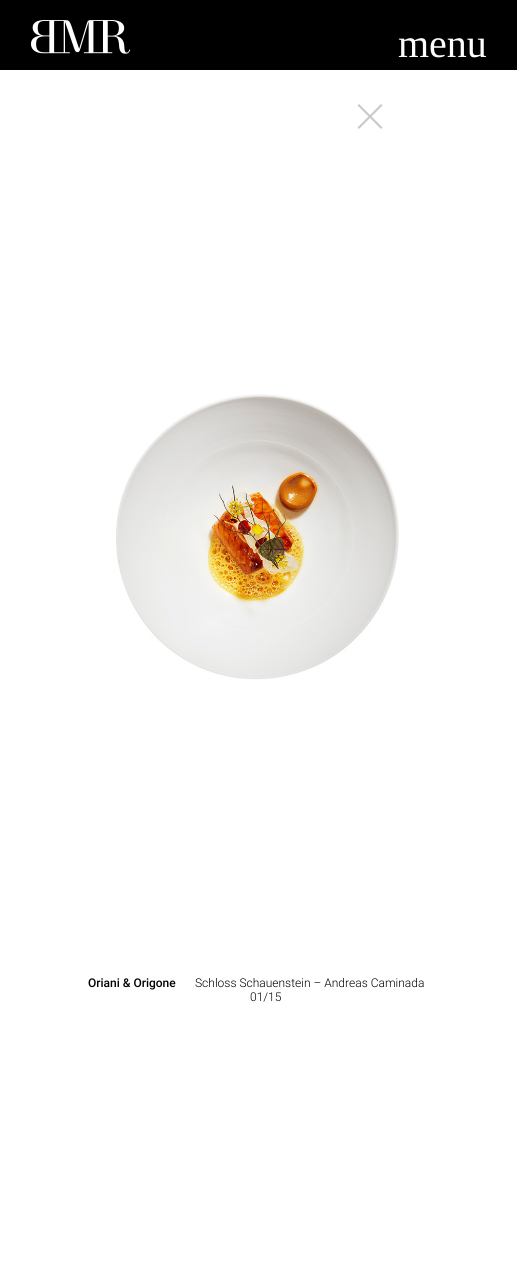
import math
import cairo


def use_color(cr, r, g, b):
  cr.set_source_rgb(r / 255, g / 255, b / 255)

def text(cr, x, y, s, family, size, color, bold=False, italic=False):
  cr.select_font_face(family, cairo.FONT_SLANT_ITALIC if italic else cairo.FONT_SLANT_NORMAL, cairo.FONT_WEIGHT_BOLD if bold else cairo.FONT_WEIGHT_NORMAL)
  cr.set_font_size(size)
  use_color(cr, *color)
  cr.move_to(x, y)
  cr.show_text(s)

def box(cr, x, y, w, h, *color):
  use_color(cr, *color)
  cr.rectangle(x, y, w, h)
  cr.fill()

def picture(cr, path, x, y, w, h):
  cr.save()
  cr.set_source_surface(cairo.ImageSurface.create_from_png(path), x, y)
  cr.rectangle(x, y, w, h)
  cr.fill()
  cr.restore()

def draw(cr):
  use_color(cr, 255, 255, 255)
  cr.paint()
  box(cr, 0, 0, 517, 70, 0, 0, 0)
  picture(cr, "img_01.png", 31, 20, 100, 34)
  use_color(cr, 201, 201, 201)
  cr.new_path()
  cr.move_to(381, 104)
  cr.line_to(382.5, 105.5)
  cr.line_to(359, 129)
  cr.line_to(357.5, 127.5)
  cr.close_path()
  cr.fill()
  cr.new_path()
  cr.move_to(357.5, 105.5)
  cr.line_to(359, 104)
  cr.line_to(382.5, 127.5)
  cr.line_to(381, 129)
  cr.close_path()
  cr.fill()
  picture(cr, "img_02.png", 116, 394, 283, 286)
  text(cr, 398, 57, "menu", "Liberation Serif", 40, (255, 255, 255))
  text(cr, 88, 987, "Oriani & Origone", "Roboto Medium", 12, (0, 0, 0))
  text(cr, 195, 987, "Schloss Schauenstein – Andreas Caminada", "Roboto Light", 12, (0, 0, 0))
  text(cr, 250, 1001, "01/15", "Roboto Light", 12, (0, 0, 0))


surface = cairo.ImageSurface(cairo.FORMAT_RGB24, 517, 1284)
cr = cairo.Context(surface)
options = cairo.FontOptions()
options.set_hint_metrics(cairo.HINT_METRICS_OFF)
options.set_hint_style(cairo.HINT_STYLE_NONE)
cr.set_font_options(options)
cr.set_miter_limit(4)
draw(cr)
surface.write_to_png("out.png")
